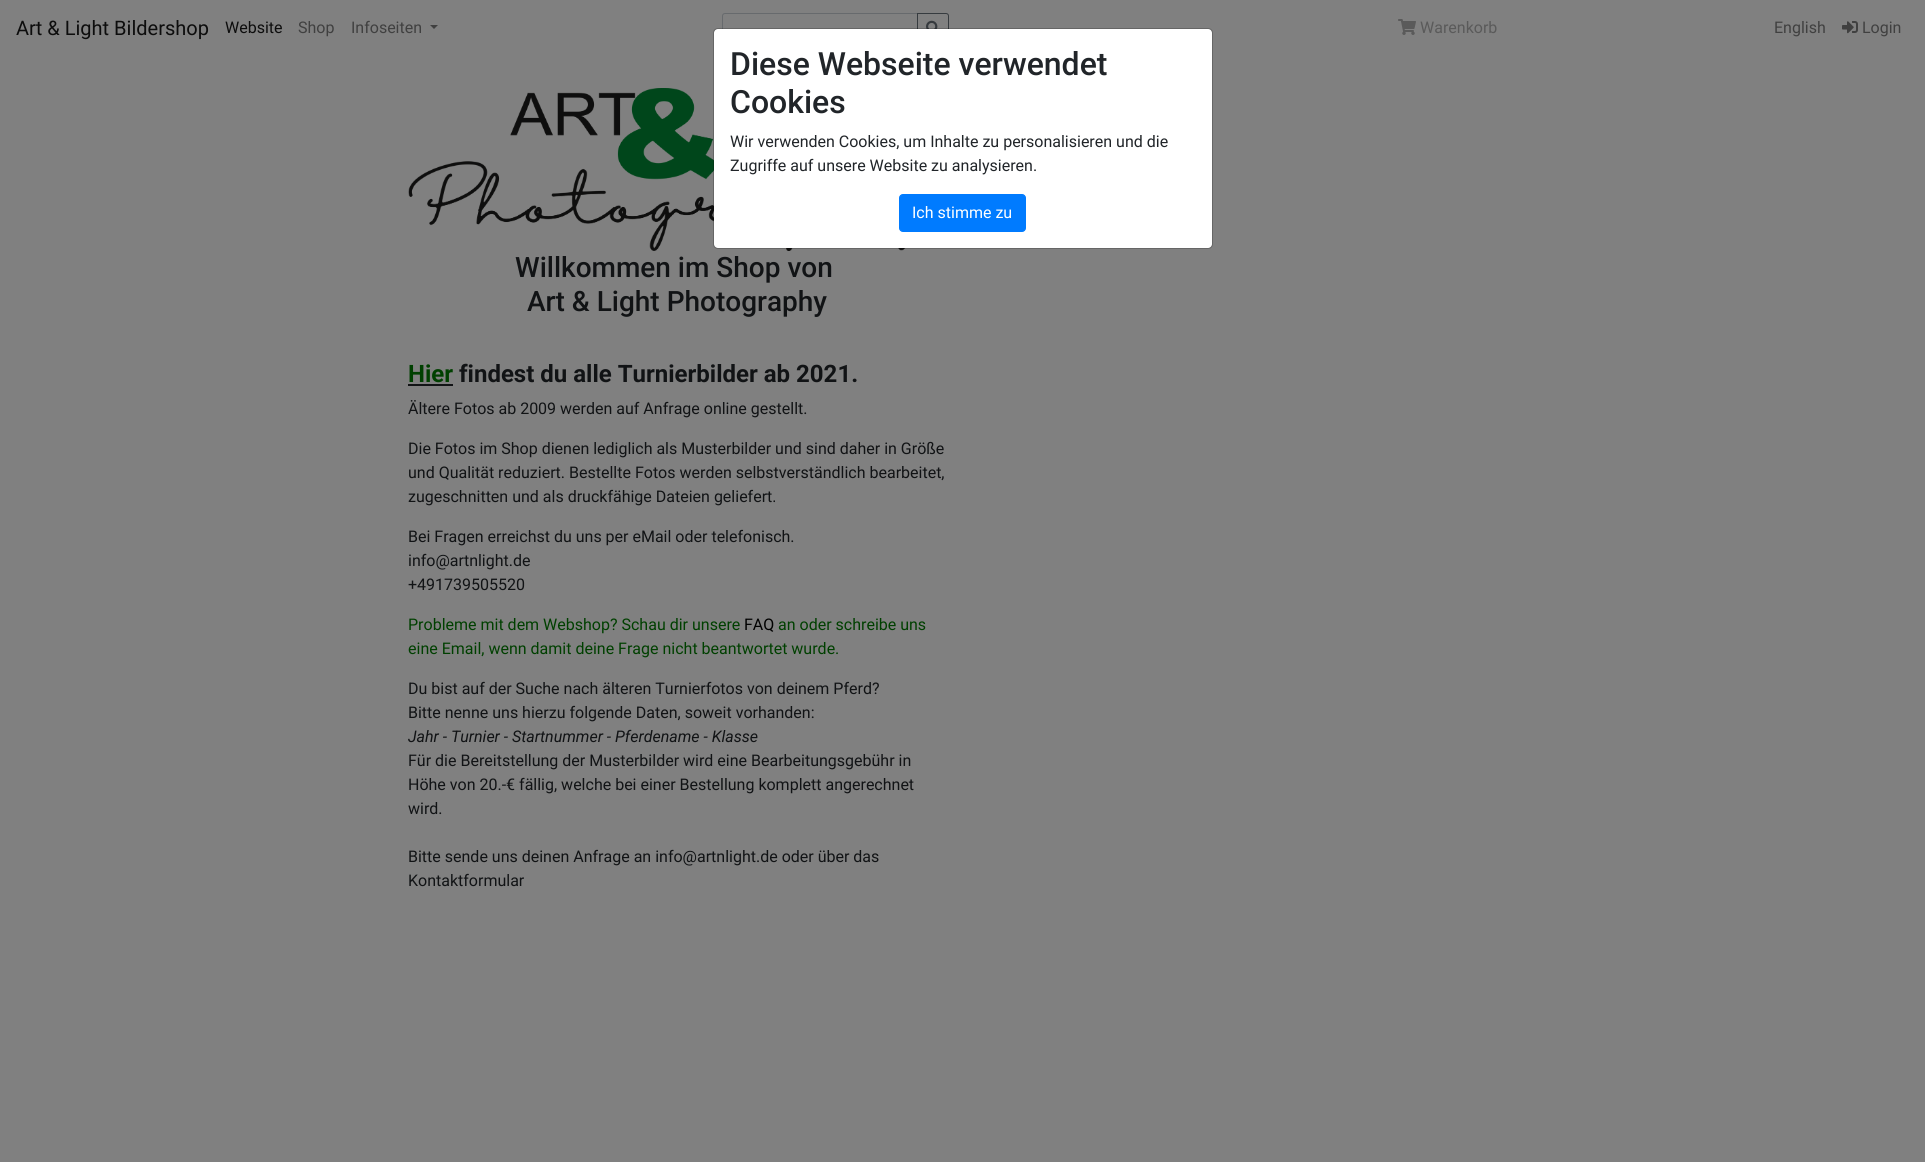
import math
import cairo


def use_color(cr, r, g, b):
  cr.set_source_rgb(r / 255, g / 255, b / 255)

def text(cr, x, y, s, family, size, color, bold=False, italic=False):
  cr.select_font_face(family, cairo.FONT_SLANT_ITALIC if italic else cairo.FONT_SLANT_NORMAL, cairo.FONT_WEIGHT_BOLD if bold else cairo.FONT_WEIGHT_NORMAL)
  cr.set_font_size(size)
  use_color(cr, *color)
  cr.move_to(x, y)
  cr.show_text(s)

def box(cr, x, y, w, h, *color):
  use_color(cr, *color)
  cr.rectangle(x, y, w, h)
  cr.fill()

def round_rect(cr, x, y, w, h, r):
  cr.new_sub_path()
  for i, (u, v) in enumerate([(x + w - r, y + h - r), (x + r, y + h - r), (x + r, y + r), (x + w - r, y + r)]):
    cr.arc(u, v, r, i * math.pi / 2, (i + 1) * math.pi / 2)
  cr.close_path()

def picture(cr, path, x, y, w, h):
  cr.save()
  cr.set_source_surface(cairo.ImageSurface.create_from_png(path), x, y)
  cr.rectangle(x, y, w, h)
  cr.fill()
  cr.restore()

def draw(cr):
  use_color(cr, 128, 128, 128)
  cr.paint()
  use_color(cr, 64, 64, 64)
  cr.new_path()
  cr.move_to(430, 25)
  cr.line_to(438, 25)
  cr.line_to(434, 29)
  cr.close_path()
  cr.fill()
  cr.new_path()
  cr.move_to(725, 13.5)
  cr.line_to(917.5, 13.5)
  cr.line_to(917.5, 43.5)
  cr.line_to(725, 43.5)
  cr.curve_to(723.5, 43.5, 722.5, 42.5, 722.5, 41)
  cr.line_to(722.5, 16)
  cr.curve_to(722.5, 14.5, 723.5, 13.5, 725, 13.5)
  cr.close_path()
  use_color(cr, 103, 106, 109)
  cr.set_line_width(1)
  cr.stroke()
  cr.new_path()
  cr.move_to(917.5, 13.5)
  cr.line_to(946, 13.5)
  cr.curve_to(947.5, 13.5, 948.5, 14.5, 948.5, 16)
  cr.line_to(948.5, 41)
  cr.curve_to(948.5, 42.5, 947.5, 43.5, 946, 43.5)
  cr.line_to(917.5, 43.5)
  cr.close_path()
  use_color(cr, 54, 59, 63)
  cr.stroke()
  picture(cr, "img_01.png", 926, 20, 12, 9)
  picture(cr, "img_02.png", 1398, 19, 18, 16)
  picture(cr, "img_03.png", 1842, 21, 16, 13)
  picture(cr, "img_04.png", 408, 88, 498, 163)
  use_color(cr, 255, 255, 255)
  round_rect(cr, 714, 29, 498, 219, 4)
  cr.fill()
  round_rect(cr, 713.5, 28.5, 499, 220, 4.5)
  cr.set_source_rgba(0, 0, 0, 0.2)
  cr.stroke()
  use_color(cr, 0, 123, 255)
  round_rect(cr, 899.5, 194.5, 126, 37, 3.5)
  cr.fill_preserve()
  cr.stroke()
  box(cr, 408, 384, 45, 2, 17, 19, 21)
  text(cr, 16, 35, "Art & Light Bildershop", "Roboto", 20, (13, 13, 13))
  text(cr, 225, 33, "Website", "Roboto", 16, (13, 13, 13))
  text(cr, 298, 33, "Shop", "Roboto", 16, (64, 64, 64))
  text(cr, 351, 33, "Infoseiten", "Roboto", 16, (64, 64, 64))
  text(cr, 1420, 33, "Warenkorb", "Roboto", 16, (90, 90, 90))
  text(cr, 1774, 33, "English", "Roboto", 16, (64, 64, 64))
  text(cr, 1862, 33, "Login", "Roboto", 16, (64, 64, 64))
  text(cr, 730, 75, "Diese Webseite verwendet", "Roboto Medium", 32, (33, 37, 41))
  text(cr, 730, 113, "Cookies", "Roboto Medium", 32, (33, 37, 41))
  text(cr, 730, 147, "Wir verwenden Cookies, um Inhalte zu personalisieren und die", "Roboto", 16, (33, 37, 41))
  text(cr, 730, 171, "Zugriffe auf unsere Website zu analysieren.", "Roboto", 16, (33, 37, 41))
  text(cr, 912, 218, "Ich stimme zu", "Roboto", 16, (255, 255, 255))
  text(cr, 515, 277, "Willkommen im Shop von", "Roboto Medium", 28, (17, 19, 21))
  text(cr, 527, 311, "Art & Light Photography", "Roboto Medium", 28, (17, 19, 21))
  text(cr, 408, 382, "Hier", "Roboto", 24, (0, 64, 0), bold=True)
  text(cr, 459, 382, "findest du alle Turnierbilder ab 2021.", "Roboto", 24, (17, 19, 21), bold=True)
  text(cr, 408, 414, "Ältere Fotos ab 2009 werden auf Anfrage online gestellt.", "Roboto", 16, (17, 19, 21))
  text(cr, 408, 454, "Die Fotos im Shop dienen lediglich als Musterbilder und sind daher in Größe", "Roboto", 16, (17, 19, 21))
  text(cr, 408, 478, "und Qualität reduziert. Bestellte Fotos werden selbstverständlich bearbeitet,", "Roboto", 16, (17, 19, 21))
  text(cr, 408, 502, "zugeschnitten und als druckfähige Dateien geliefert.", "Roboto", 16, (17, 19, 21))
  text(cr, 408, 542, "Bei Fragen erreichst du uns per eMail oder telefonisch.", "Roboto", 16, (17, 19, 21))
  text(cr, 408, 566, "info@artnlight.de", "Roboto", 16, (17, 19, 21))
  text(cr, 408, 590, "+491739505520", "Roboto", 16, (17, 19, 21))
  text(cr, 408, 630, "Probleme mit dem Webshop? Schau dir unsere", "Roboto", 16, (0, 64, 0))
  text(cr, 744, 630, "FAQ", "Roboto", 16, (0, 0, 0))
  text(cr, 778, 630, "an oder schreibe uns", "Roboto", 16, (0, 64, 0))
  text(cr, 408, 654, "eine Email, wenn damit deine Frage nicht beantwortet wurde.", "Roboto", 16, (0, 64, 0))
  text(cr, 408, 694, "Du bist auf der Suche nach älteren Turnierfotos von deinem Pferd?", "Roboto", 16, (17, 19, 21))
  text(cr, 408, 718, "Bitte nenne uns hierzu folgende Daten, soweit vorhanden:", "Roboto", 16, (17, 19, 21))
  text(cr, 408, 742, "Jahr - Turnier - Startnummer - Pferdename - Klasse", "Roboto", 16, (17, 19, 21), italic=True)
  text(cr, 408, 766, "Für die Bereitstellung der Musterbilder wird eine Bearbeitungsgebühr in", "Roboto", 16, (17, 19, 21))
  text(cr, 408, 790, "Höhe von 20.-€ fällig, welche bei einer Bestellung komplett angerechnet", "Roboto", 16, (17, 19, 21))
  text(cr, 408, 814, "wird.", "Roboto", 16, (17, 19, 21))
  text(cr, 408, 862, "Bitte sende uns deinen Anfrage an info@artnlight.de oder über das", "Roboto", 16, (17, 19, 21))
  text(cr, 408, 886, "Kontaktformular", "Roboto", 16, (17, 19, 21))


surface = cairo.ImageSurface(cairo.FORMAT_RGB24, 1925, 1162)
cr = cairo.Context(surface)
options = cairo.FontOptions()
options.set_hint_metrics(cairo.HINT_METRICS_OFF)
options.set_hint_style(cairo.HINT_STYLE_NONE)
cr.set_font_options(options)
cr.set_miter_limit(4)
draw(cr)
surface.write_to_png("out.png")
